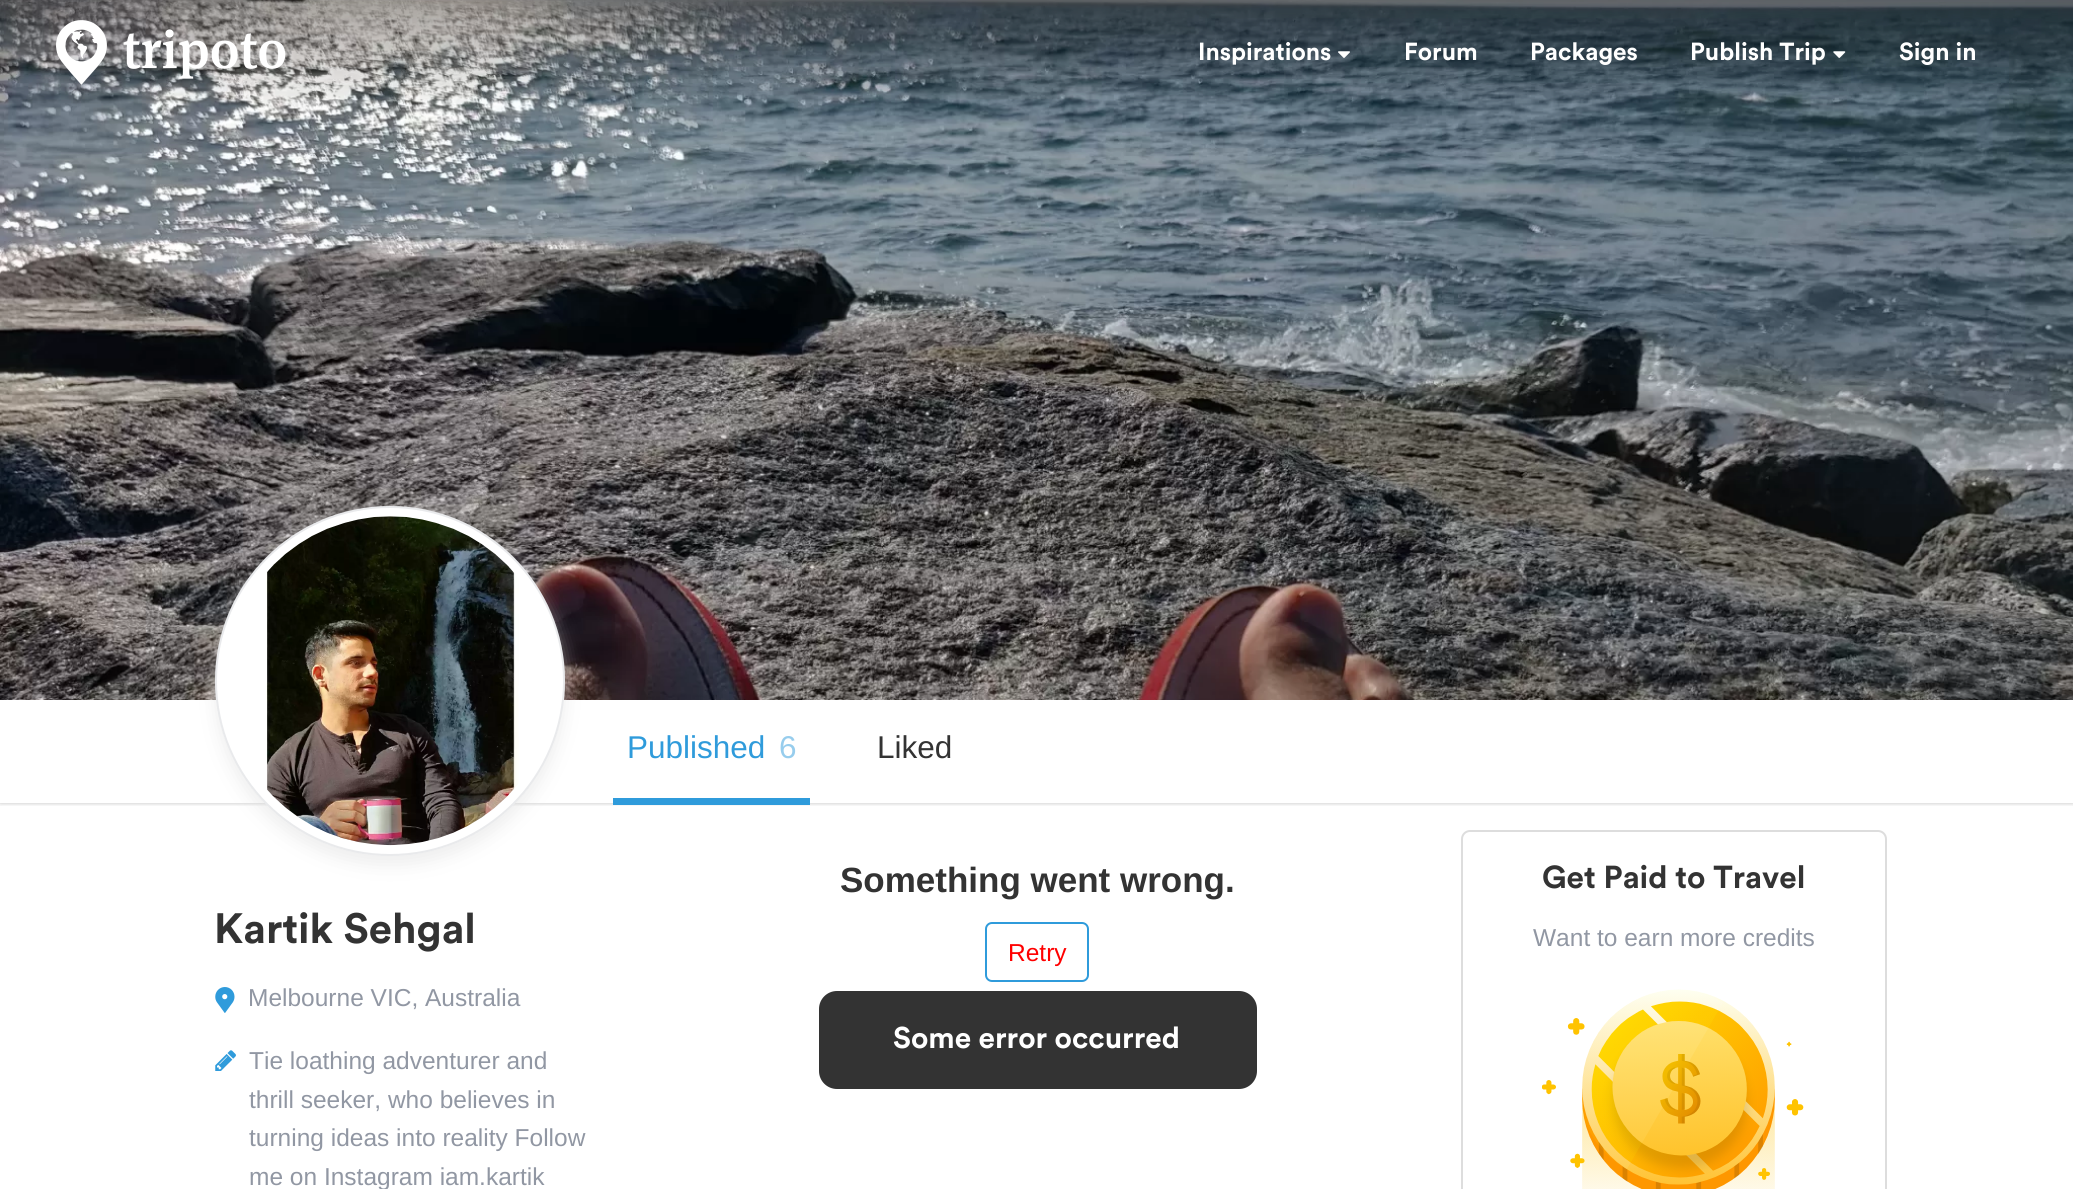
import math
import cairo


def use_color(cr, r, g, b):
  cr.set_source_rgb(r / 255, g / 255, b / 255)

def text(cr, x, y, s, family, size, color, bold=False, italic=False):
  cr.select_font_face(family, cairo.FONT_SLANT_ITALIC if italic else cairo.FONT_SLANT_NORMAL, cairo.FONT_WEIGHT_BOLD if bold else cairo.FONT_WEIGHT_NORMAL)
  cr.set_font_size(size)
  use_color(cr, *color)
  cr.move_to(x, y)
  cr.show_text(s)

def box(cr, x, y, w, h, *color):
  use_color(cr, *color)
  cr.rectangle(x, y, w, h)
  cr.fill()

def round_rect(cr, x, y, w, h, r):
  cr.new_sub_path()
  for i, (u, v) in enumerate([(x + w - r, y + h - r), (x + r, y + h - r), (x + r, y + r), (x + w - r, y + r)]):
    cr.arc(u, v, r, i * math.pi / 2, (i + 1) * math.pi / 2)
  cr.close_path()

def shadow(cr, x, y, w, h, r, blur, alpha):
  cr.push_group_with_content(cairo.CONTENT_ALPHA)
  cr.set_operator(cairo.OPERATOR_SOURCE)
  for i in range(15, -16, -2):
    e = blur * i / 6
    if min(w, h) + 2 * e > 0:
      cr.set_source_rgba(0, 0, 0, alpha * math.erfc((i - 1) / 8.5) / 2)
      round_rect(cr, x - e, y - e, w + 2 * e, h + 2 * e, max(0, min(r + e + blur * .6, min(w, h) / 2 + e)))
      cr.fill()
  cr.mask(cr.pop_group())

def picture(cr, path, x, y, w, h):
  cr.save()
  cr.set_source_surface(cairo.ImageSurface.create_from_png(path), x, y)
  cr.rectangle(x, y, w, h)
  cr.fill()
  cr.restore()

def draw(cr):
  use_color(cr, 255, 255, 255)
  cr.paint()
  cr.save()
  cr.rectangle(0, 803, 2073, 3)
  cr.clip()
  use_color(cr, 0, 0, 0)
  shadow(cr, 0, 700, 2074, 103, 0, 2.5, 0.25)
  cr.restore()
  picture(cr, "img_04.png", 0, 0, 2073, 700)
  picture(cr, "img_01.png", 56, 20, 230, 65)
  picture(cr, "img_02.png", 1338, 51, 12, 7)
  picture(cr, "img_03.png", 1833, 51, 13, 7)
  box(cr, 613, 798, 197, 7, 47, 155, 219)
  use_color(cr, 221, 221, 221)
  shadow(cr, 215, 515, 350, 350, 175, 9, 0.5)
  use_color(cr, 255, 255, 255)
  cr.arc(390, 681, 175, 0, 2 * math.pi)
  cr.fill()
  cr.arc(390, 681, 174, 0, 2 * math.pi)
  cr.set_source_rgba(0.569, 0.592, 0.639, 0.2)
  cr.stroke()
  picture(cr, "img_05.png", 266, 516, 253, 330)
  picture(cr, "img_06.png", 215, 987, 20, 26)
  picture(cr, "img_07.png", 215, 1050, 21, 21)
  round_rect(cr, 986, 923, 102, 58, 6)
  use_color(cr, 47, 155, 219)
  cr.stroke()
  round_rect(cr, 1462, 831, 424, 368, 8)
  use_color(cr, 221, 221, 221)
  cr.stroke()
  picture(cr, "img_08.png", 1542, 989, 262, 200)
  use_color(cr, 51, 51, 51)
  round_rect(cr, 819, 991, 438, 98, 18)
  cr.fill()
  text(cr, 1198, 60, "Inspirations", "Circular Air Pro", 24.5, (255, 255, 255), bold=True)
  text(cr, 1404, 60, "Forum", "Circular Air Pro", 24.5, (255, 255, 255), bold=True)
  text(cr, 1530, 60, "Packages", "Circular Air Pro", 24.5, (255, 255, 255), bold=True)
  text(cr, 1690, 60, "Publish Trip", "Circular Air Pro", 24.5, (255, 255, 255), bold=True)
  text(cr, 1899, 60, "Sign in", "Circular Air Pro", 24.5, (255, 255, 255), bold=True)
  text(cr, 627, 758, "Published", "Liberation Sans", 31.5, (47, 155, 219))
  text(cr, 779, 758, "6", "Liberation Sans", 31.5, (151, 205, 237))
  text(cr, 877, 758, "Liked", "Liberation Sans", 31.5, (51, 51, 51))
  text(cr, 214, 943, "Kartik Sehgal", "Circular Air Pro", 42, (51, 51, 51), bold=True)
  text(cr, 248, 1006, "Melbourne VIC, Australia", "Liberation Sans", 24.5, (145, 151, 163))
  text(cr, 249, 1069, "Tie loathing adventurer and", "Liberation Sans", 24.5, (145, 151, 163))
  text(cr, 249, 1108, "thrill seeker, who believes in", "Liberation Sans", 24.5, (145, 151, 163))
  text(cr, 249, 1146, "turning ideas into reality Follow", "Liberation Sans", 24.5, (145, 151, 163))
  text(cr, 249, 1185, "me on Instagram iam.kartik", "Liberation Sans", 24.5, (145, 151, 163))
  text(cr, 840, 892, "Something went wrong.", "Liberation Sans", 35, (51, 51, 51), bold=True)
  text(cr, 1008, 961, "Retry", "Liberation Sans", 24.5, (255, 0, 0))
  text(cr, 1542, 888, "Get Paid to Travel", "Circular Air Pro", 31.5, (51, 51, 51), bold=True)
  text(cr, 1533, 946, "Want to earn more credits", "Liberation Sans", 24.5, (145, 151, 163))
  text(cr, 893, 1048, "Some error occurred", "Circular Air Pro", 29.75, (255, 255, 255), bold=True)


surface = cairo.ImageSurface(cairo.FORMAT_RGB24, 2073, 1189)
cr = cairo.Context(surface)
options = cairo.FontOptions()
options.set_hint_metrics(cairo.HINT_METRICS_OFF)
options.set_hint_style(cairo.HINT_STYLE_NONE)
cr.set_font_options(options)
cr.set_miter_limit(4)
draw(cr)
surface.write_to_png("out.png")
